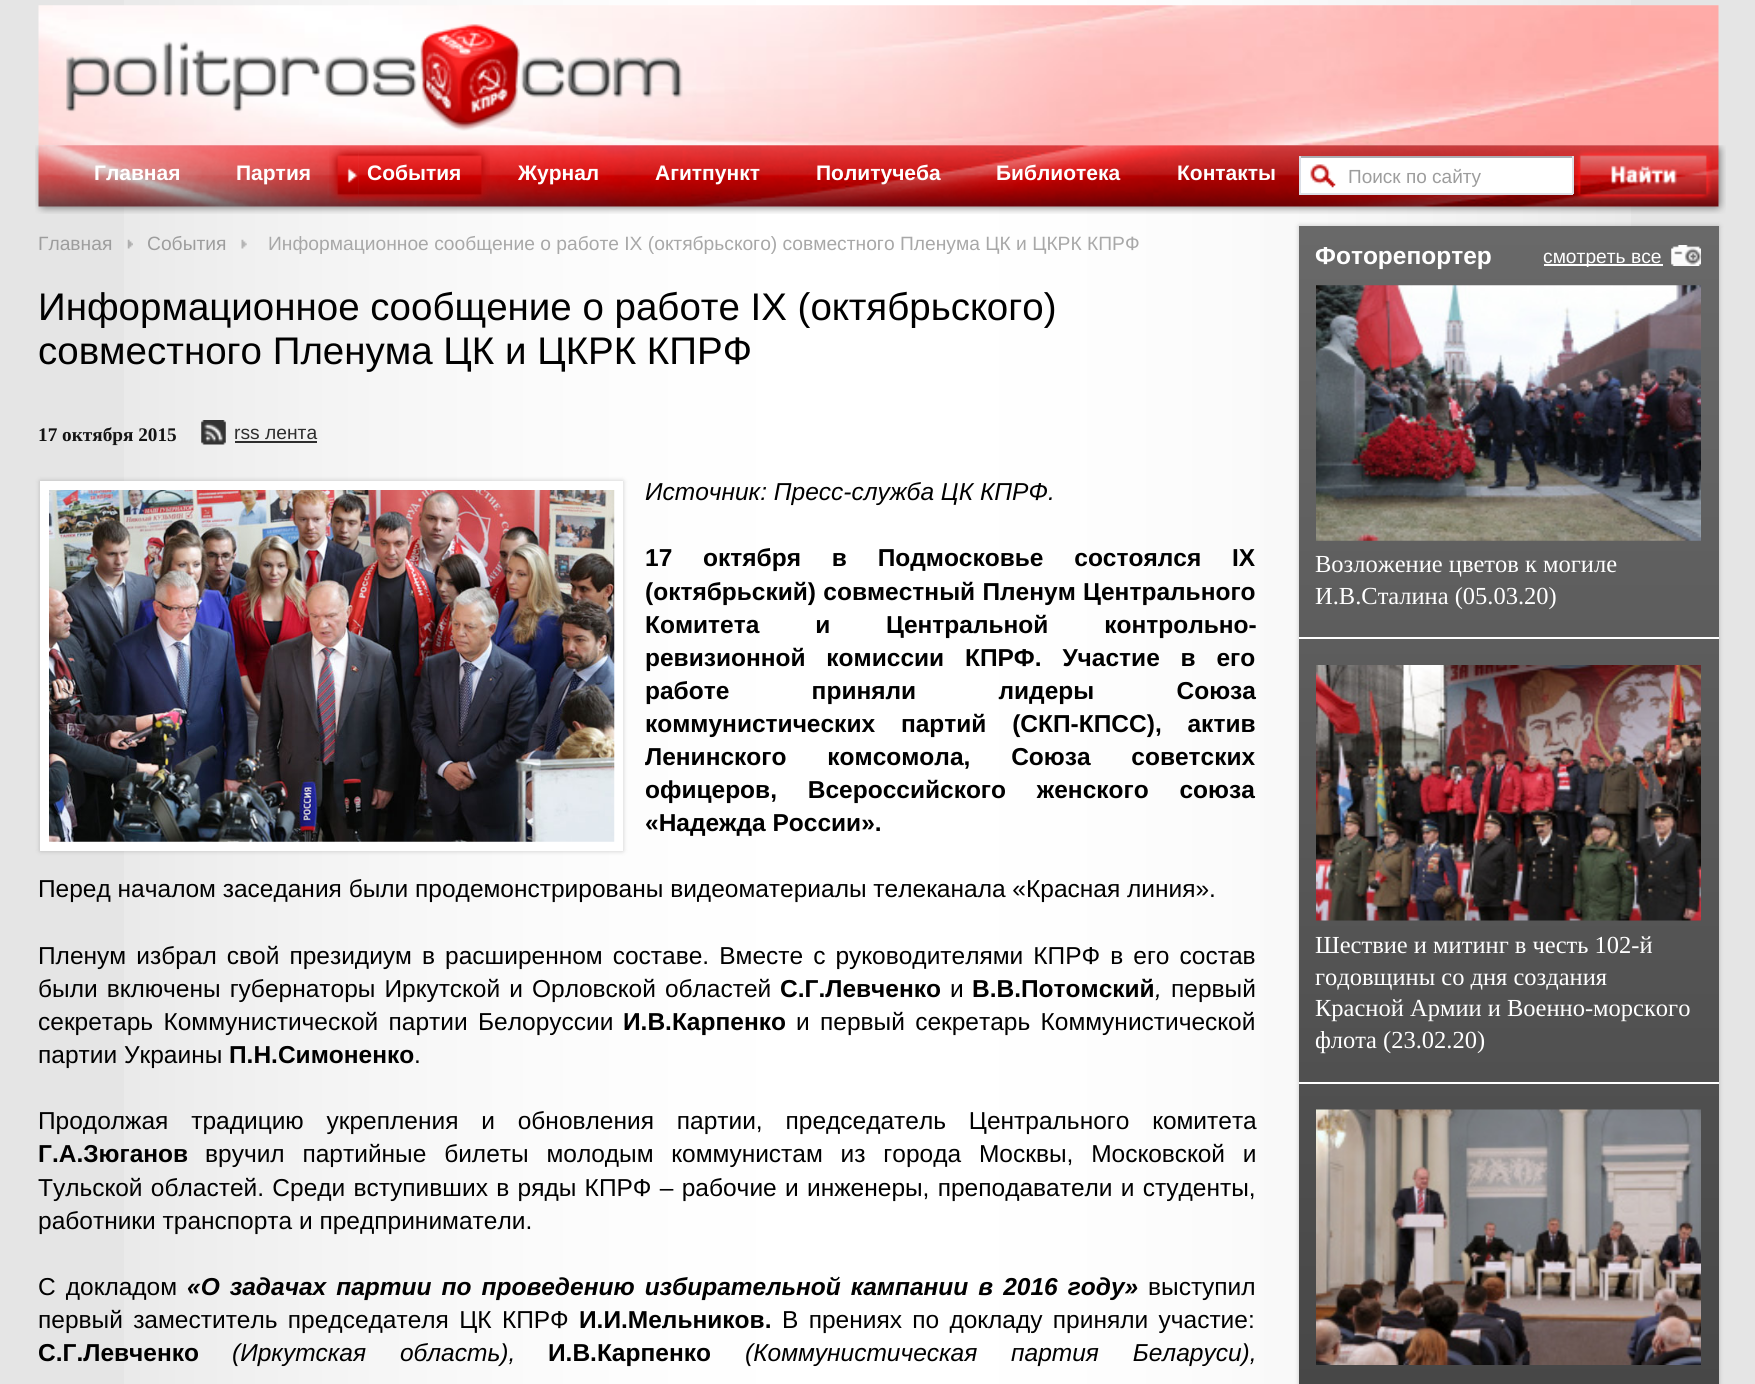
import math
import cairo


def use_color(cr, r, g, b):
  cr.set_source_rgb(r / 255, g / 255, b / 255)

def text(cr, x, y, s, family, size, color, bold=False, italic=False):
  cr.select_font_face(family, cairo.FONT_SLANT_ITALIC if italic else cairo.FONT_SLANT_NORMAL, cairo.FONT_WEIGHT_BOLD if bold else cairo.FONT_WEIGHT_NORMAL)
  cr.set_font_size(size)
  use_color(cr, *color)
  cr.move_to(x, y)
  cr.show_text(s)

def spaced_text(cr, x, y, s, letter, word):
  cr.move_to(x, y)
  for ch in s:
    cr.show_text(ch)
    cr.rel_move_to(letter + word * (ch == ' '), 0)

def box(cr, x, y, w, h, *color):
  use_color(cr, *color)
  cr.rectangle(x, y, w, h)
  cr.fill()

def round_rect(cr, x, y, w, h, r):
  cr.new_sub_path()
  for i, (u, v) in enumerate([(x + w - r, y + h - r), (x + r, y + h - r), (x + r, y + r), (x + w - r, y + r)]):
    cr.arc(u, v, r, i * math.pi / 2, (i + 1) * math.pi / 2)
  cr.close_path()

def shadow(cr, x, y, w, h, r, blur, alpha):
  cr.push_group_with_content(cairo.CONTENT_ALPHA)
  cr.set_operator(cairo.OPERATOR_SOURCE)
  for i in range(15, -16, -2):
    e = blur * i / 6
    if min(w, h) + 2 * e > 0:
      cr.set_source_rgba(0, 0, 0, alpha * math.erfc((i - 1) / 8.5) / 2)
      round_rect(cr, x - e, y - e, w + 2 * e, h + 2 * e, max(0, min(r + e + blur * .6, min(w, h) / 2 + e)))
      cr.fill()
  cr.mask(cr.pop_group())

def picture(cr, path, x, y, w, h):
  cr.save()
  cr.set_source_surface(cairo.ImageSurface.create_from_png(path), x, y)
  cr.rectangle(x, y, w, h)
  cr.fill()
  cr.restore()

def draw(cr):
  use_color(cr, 229, 229, 229)
  cr.paint()
  picture(cr, "img_01.png", 124, 0, 1507, 1384)
  picture(cr, "img_02.png", 38, 5, 1681, 141)
  picture(cr, "img_03.png", 66, 24, 617, 107)
  picture(cr, "img_04.png", 35, 145, 1691, 69)
  picture(cr, "img_05.png", 329, 146, 30, 57)
  picture(cr, "img_06.png", 358, 146, 132, 55)
  box(cr, 1301, 158, 271, 35, 255, 255, 255)
  picture(cr, "img_07.png", 1310, 164, 26, 24)
  box(cr, 1299, 156, 274, 2, 171, 173, 179)
  box(cr, 1572, 156, 2, 38, 219, 223, 230)
  box(cr, 1299, 193, 274, 2, 219, 223, 230)
  box(cr, 1299, 156, 2, 38, 219, 223, 230)
  picture(cr, "img_08.png", 1575, 150, 137, 50)
  picture(cr, "img_09.png", 127, 239, 6, 10)
  picture(cr, "img_10.png", 241, 239, 6, 10)
  picture(cr, "img_11.png", 201, 420, 25, 25)
  box(cr, 235, 441, 82, 2, 46, 46, 46)
  use_color(cr, 0, 0, 0)
  shadow(cr, 40, 481, 583, 370, 0, 2.5, 0.2)
  box(cr, 40, 481, 583, 370, 255, 255, 255)
  picture(cr, "img_12.png", 49, 490, 566, 352)
  use_color(cr, 0, 0, 0)
  shadow(cr, 1299, 226, 420, 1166, 0, 2.5, 0.2)
  gradient = cairo.LinearGradient(1509, 226, 1509, 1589)
  gradient.add_color_stop_rgba(0, 0.412, 0.412, 0.412, 1)
  gradient.add_color_stop_rgba(1, 0.255, 0.255, 0.255, 1)
  cr.set_source(gradient)
  cr.rectangle(1299, 226, 420, 1158)
  cr.fill()
  picture(cr, "img_13.png", 1671, 245, 30, 21)
  box(cr, 1544, 264, 119, 2, 255, 255, 255)
  picture(cr, "img_14.png", 1316, 285, 385, 256)
  box(cr, 1299, 637, 420, 2, 255, 255, 255)
  picture(cr, "img_15.png", 1316, 665, 385, 256)
  box(cr, 1299, 1082, 420, 2, 255, 255, 255)
  picture(cr, "img_16.png", 1316, 1109, 385, 256)
  text(cr, 94, 180, "Главная", "Liberation Sans", 21, (255, 255, 255), bold=True)
  text(cr, 236, 180, "Партия", "Liberation Sans", 21, (255, 255, 255), bold=True)
  text(cr, 367, 180, "События", "Liberation Sans", 21, (255, 255, 255), bold=True)
  text(cr, 518, 180, "Журнал", "Liberation Sans", 21, (255, 255, 255), bold=True)
  text(cr, 655, 180, "Агитпункт", "Liberation Sans", 21, (255, 255, 255), bold=True)
  text(cr, 816, 180, "Политучеба", "Liberation Sans", 21, (255, 255, 255), bold=True)
  text(cr, 996, 180, "Библиотека", "Liberation Sans", 21, (255, 255, 255), bold=True)
  text(cr, 1177, 180, "Контакты", "Liberation Sans", 21, (255, 255, 255), bold=True)
  text(cr, 1348, 183, "Поиск по сайту", "Liberation Sans", 19, (157, 157, 157))
  text(cr, 38, 250, "Главная", "Liberation Sans", 19.25, (157, 157, 157))
  text(cr, 147, 250, "События", "Liberation Sans", 19.25, (157, 157, 157))
  text(cr, 268, 250, "Информационное сообщение о работе IX (октябрьского) совместного Пленума ЦК и ЦКРК КПРФ", "Liberation Sans", 19.25, (168, 168, 168))
  text(cr, 38, 320, "Информационное сообщение о работе IX (октябрьского)", "Liberation Sans", 38.5, (0, 0, 0))
  text(cr, 38, 364, "совместного Пленума ЦК и ЦКРК КПРФ", "Liberation Sans", 38.5, (0, 0, 0))
  text(cr, 38, 441, "17 октября 2015", "Liberation Serif", 19.25, (20, 20, 20), bold=True)
  text(cr, 234, 439, "rss лента", "Liberation Sans", 19.25, (46, 46, 46))
  text(cr, 645, 500, "Источник: Пресс-служба ЦК КПРФ.", "Liberation Sans", 24.5, (0, 0, 0), italic=True)
  cr.select_font_face("Liberation Sans", cairo.FONT_SLANT_NORMAL, cairo.FONT_WEIGHT_BOLD)
  spaced_text(cr, 645, 566, "17 октября в Подмосковье состоялся IX", 0, 24)
  spaced_text(cr, 645, 600, "(октябрьский) совместный Пленум Центрального", 0, 0.5)
  spaced_text(cr, 645, 633, "Комитета и Центральной контрольно-", 0, 49)
  spaced_text(cr, 645, 666, "ревизионной комиссии КПРФ. Участие в его", 0, 14)
  spaced_text(cr, 645, 699, "работе приняли лидеры Союза", 0, 75.5)
  spaced_text(cr, 645, 732, "коммунистических партий (СКП-КПСС), актив", 0, 19)
  spaced_text(cr, 645, 765, "Ленинского комсомола, Союза советских", 0, 34)
  spaced_text(cr, 645, 798, "офицеров, Всероссийского женского союза", 0, 24)
  text(cr, 645, 831, "«Надежда России».", "Liberation Sans", 24.5, (0, 0, 0), bold=True)
  text(cr, 38, 897, "Перед началом заседания были продемонстрированы видеоматериалы телеканала «Красная линия».", "Liberation Sans", 24.5, (0, 0, 0))
  spaced_text(cr, 38, 964, "Пленум избрал свой президиум в расширенном составе. Вместе с руководителями КПРФ в его состав", 0, 3.25)
  spaced_text(cr, 38, 997, "были включены губернаторы Иркутской и Орловской областей", 0, 2.25)
  text(cr, 780, 997, "С.Г.Левченко", "Liberation Sans", 24.5, (0, 0, 0), bold=True)
  text(cr, 950, 997, "и", "Liberation Sans", 24.5, (0, 0, 0))
  text(cr, 972, 997, "В.В.Потомский", "Liberation Sans", 24.5, (0, 0, 0), bold=True)
  text(cr, 1155, 997, ",", "Liberation Sans", 24.5, (0, 0, 0), italic=True)
  text(cr, 1171, 997, "первый", "Liberation Sans", 24.5, (0, 0, 0))
  spaced_text(cr, 38, 1030, "секретарь Коммунистической партии Белоруссии", 0, 3.5)
  text(cr, 623, 1030, "И.В.Карпенко", "Liberation Sans", 24.5, (0, 0, 0), bold=True)
  cr.select_font_face("Liberation Sans")
  spaced_text(cr, 796, 1030, "и первый секретарь Коммунистической", 0, 3.5)
  text(cr, 38, 1063, "партии Украины", "Liberation Sans", 24.5, (0, 0, 0))
  text(cr, 229, 1063, "П.Н.Симоненко", "Liberation Sans", 24.5, (0, 0, 0), bold=True)
  text(cr, 414, 1063, ".", "Liberation Sans", 24.5, (0, 0, 0))
  spaced_text(cr, 38, 1129, "Продолжая традицию укрепления и обновления партии, председатель Центрального комитета", 0, 16)
  text(cr, 38, 1162, "Г.А.Зюганов", "Liberation Sans", 24.5, (0, 0, 0), bold=True)
  cr.select_font_face("Liberation Sans")
  spaced_text(cr, 205, 1162, "вручил партийные билеты молодым коммунистам из города Москвы, Московской и", 0, 11)
  spaced_text(cr, 38, 1196, "Тульской областей. Среди вступивших в ряды КПРФ – рабочие и инженеры, преподаватели и студенты,", 0, 1.5)
  text(cr, 38, 1229, "работники транспорта и предприниматели.", "Liberation Sans", 24.5, (0, 0, 0))
  spaced_text(cr, 38, 1295, "С докладом", 0, 3.25)
  cr.select_font_face("Liberation Sans", cairo.FONT_SLANT_ITALIC, cairo.FONT_WEIGHT_BOLD)
  spaced_text(cr, 187, 1295, "«О задачах партии по проведению избирательной кампании в 2016 году»", 0, 3.25)
  text(cr, 1148, 1295, "выступил", "Liberation Sans", 24.5, (0, 0, 0))
  spaced_text(cr, 38, 1328, "первый заместитель председателя ЦК КПРФ", 0, 3.5)
  text(cr, 579, 1328, "И.И.Мельников.", "Liberation Sans", 24.5, (0, 0, 0), bold=True)
  cr.select_font_face("Liberation Sans")
  spaced_text(cr, 782, 1328, "В прениях по докладу приняли участие:", 0, 3.5)
  text(cr, 38, 1361, "С.Г.Левченко", "Liberation Sans", 24.5, (0, 0, 0), bold=True)
  cr.select_font_face("Liberation Sans", cairo.FONT_SLANT_ITALIC)
  spaced_text(cr, 232, 1361, "(Иркутская область),", 0, 27)
  text(cr, 548, 1361, "И.В.Карпенко", "Liberation Sans", 24.5, (0, 0, 0), bold=True)
  cr.select_font_face("Liberation Sans", cairo.FONT_SLANT_ITALIC)
  spaced_text(cr, 745, 1361, "(Коммунистическая партия Беларуси),", 0, 27)
  text(cr, 1315, 264, "Фоторепортер", "Liberation Sans", 24.5, (255, 255, 255), bold=True)
  text(cr, 1543, 263, "смотреть все", "Liberation Sans", 19.25, (255, 255, 255))
  text(cr, 1315, 572, "Возложение цветов к могиле", "Liberation Serif", 24.5, (255, 255, 255))
  text(cr, 1315, 604, "И.В.Сталина (05.03.20)", "Liberation Serif", 24.5, (255, 255, 255))
  text(cr, 1315, 953, "Шествие и митинг в честь 102-й", "Liberation Serif", 24.5, (255, 255, 255))
  text(cr, 1315, 985, "годовщины со дня создания", "Liberation Serif", 24.5, (255, 255, 255))
  text(cr, 1315, 1016, "Красной Армии и Военно-морского", "Liberation Serif", 24.5, (255, 255, 255))
  text(cr, 1315, 1048, "флота (23.02.20)", "Liberation Serif", 24.5, (255, 255, 255))


surface = cairo.ImageSurface(cairo.FORMAT_RGB24, 1755, 1384)
cr = cairo.Context(surface)
options = cairo.FontOptions()
options.set_hint_metrics(cairo.HINT_METRICS_OFF)
options.set_hint_style(cairo.HINT_STYLE_NONE)
cr.set_font_options(options)
cr.set_miter_limit(4)
draw(cr)
surface.write_to_png("out.png")
